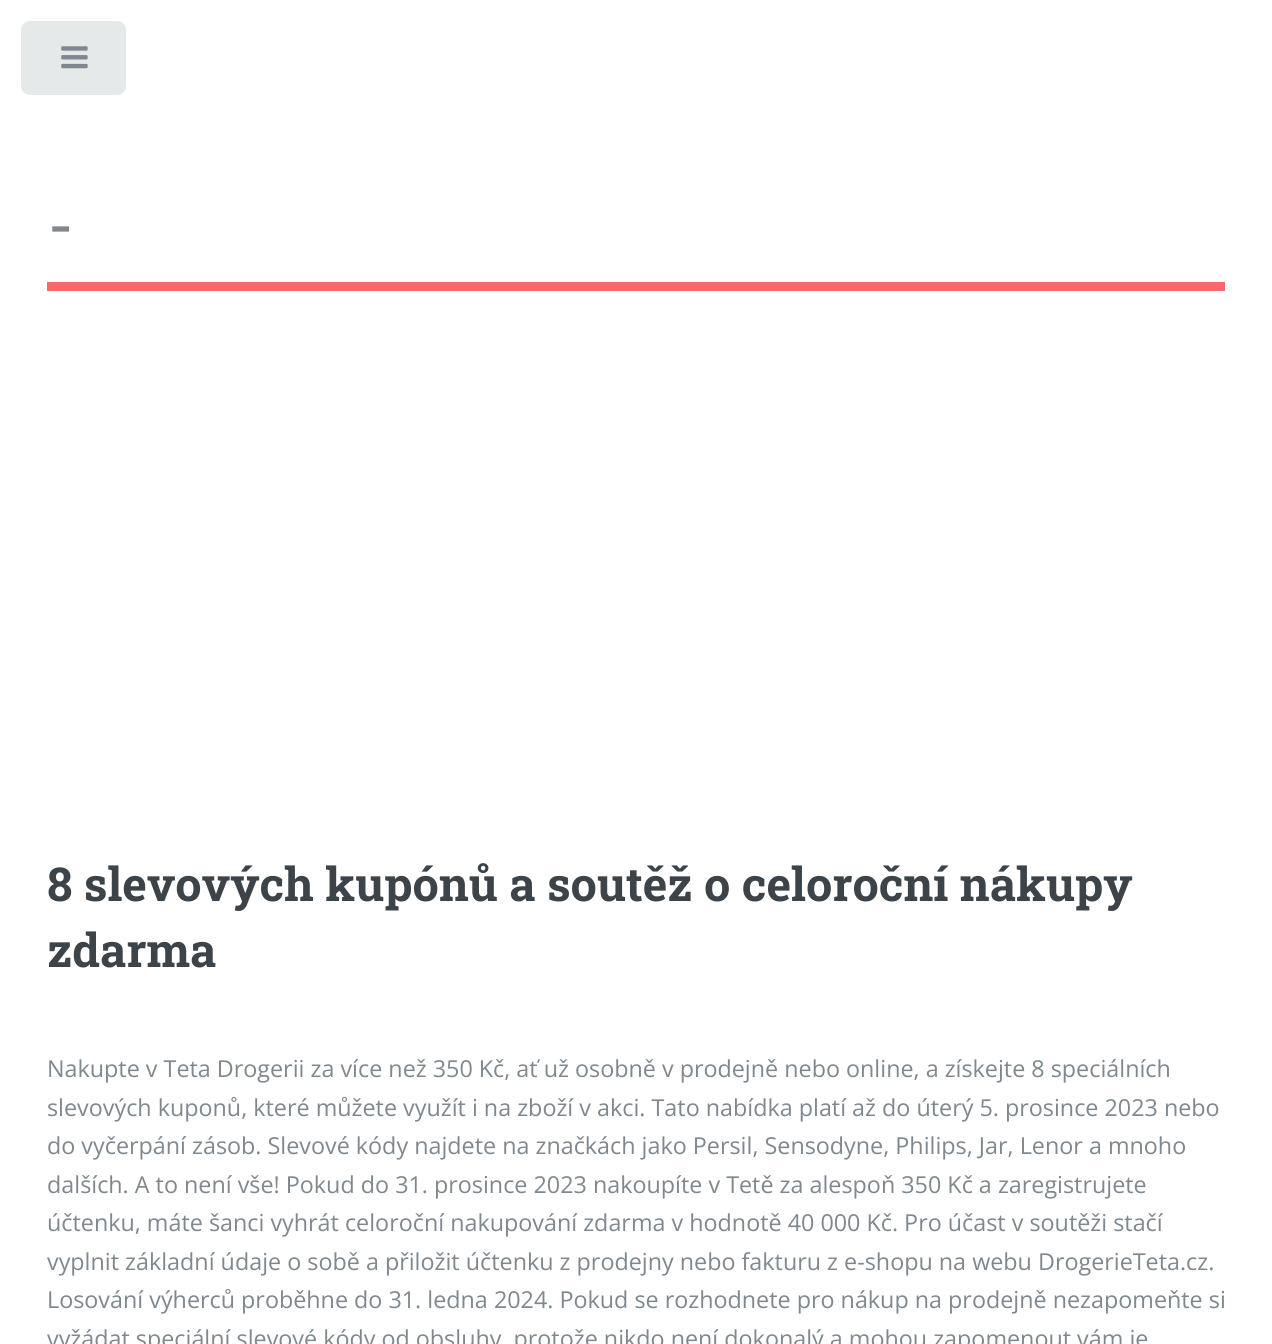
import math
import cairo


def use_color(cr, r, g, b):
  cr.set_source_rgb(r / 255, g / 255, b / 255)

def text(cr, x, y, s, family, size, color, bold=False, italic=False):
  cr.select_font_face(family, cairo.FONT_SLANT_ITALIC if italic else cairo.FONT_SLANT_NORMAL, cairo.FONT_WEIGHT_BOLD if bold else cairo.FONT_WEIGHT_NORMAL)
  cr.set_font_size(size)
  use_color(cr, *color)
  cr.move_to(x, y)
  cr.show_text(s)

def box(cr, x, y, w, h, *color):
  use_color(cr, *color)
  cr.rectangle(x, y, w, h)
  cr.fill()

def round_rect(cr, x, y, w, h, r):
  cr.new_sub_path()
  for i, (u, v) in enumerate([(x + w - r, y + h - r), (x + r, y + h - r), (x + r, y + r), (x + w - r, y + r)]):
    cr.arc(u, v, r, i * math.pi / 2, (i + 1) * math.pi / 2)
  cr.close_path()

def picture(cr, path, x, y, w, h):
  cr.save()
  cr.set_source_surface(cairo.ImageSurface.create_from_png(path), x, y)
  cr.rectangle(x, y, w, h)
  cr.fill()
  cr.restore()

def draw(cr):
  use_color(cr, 255, 255, 255)
  cr.paint()
  use_color(cr, 230, 233, 233)
  round_rect(cr, 21, 21, 105, 74, 9)
  cr.fill()
  picture(cr, "img_01.png", 61, 46, 27, 23)
  box(cr, 47, 282, 1178, 9, 245, 106, 106)
  text(cr, 47, 250, "-", "Roboto Slab", 70, (127, 136, 143))
  text(cr, 47, 901, "8 slevových kupónů a soutěž o celoroční nákupy", "Roboto Slab", 46.7, (61, 68, 73), bold=True)
  text(cr, 47, 967, "zdarma", "Roboto Slab", 46.7, (61, 68, 73), bold=True)
  text(cr, 47, 1077, "Nakupte v Teta Drogerii za více než 350 Kč, ať už osobně v prodejně nebo online, a získejte 8 speciálních", "Open Sans", 23.33, (127, 136, 143))
  text(cr, 47, 1116, "slevových kuponů, které můžete využít i na zboží v akci. Tato nabídka platí až do úterý 5. prosince 2023 nebo", "Open Sans", 23.33, (127, 136, 143))
  text(cr, 47, 1154, "do vyčerpání zásob. Slevové kódy najdete na značkách jako Persil, Sensodyne, Philips, Jar, Lenor a mnoho", "Open Sans", 23.33, (127, 136, 143))
  text(cr, 47, 1193, "dalších. A to není vše! Pokud do 31. prosince 2023 nakoupíte v Tetě za alespoň 350 Kč a zaregistrujete", "Open Sans", 23.33, (127, 136, 143))
  text(cr, 47, 1231, "účtenku, máte šanci vyhrát celoroční nakupování zdarma v hodnotě 40 000 Kč. Pro účast v soutěži stačí", "Open Sans", 23.33, (127, 136, 143))
  text(cr, 47, 1270, "vyplnit základní údaje o sobě a přiložit účtenku z prodejny nebo fakturu z e-shopu na webu DrogerieTeta.cz.", "Open Sans", 23.33, (127, 136, 143))
  text(cr, 47, 1308, "Losování výherců proběhne do 31. ledna 2024. Pokud se rozhodnete pro nákup na prodejně nezapomeňte si", "Open Sans", 23.33, (127, 136, 143))
  text(cr, 47, 1347, "vyžádat speciální slevové kódy od obsluhy, protože nikdo není dokonalý a mohou zapomenout vám je", "Open Sans", 23.33, (127, 136, 143))


surface = cairo.ImageSurface(cairo.FORMAT_RGB24, 1272, 1344)
cr = cairo.Context(surface)
options = cairo.FontOptions()
options.set_hint_metrics(cairo.HINT_METRICS_OFF)
options.set_hint_style(cairo.HINT_STYLE_NONE)
cr.set_font_options(options)
cr.set_miter_limit(4)
draw(cr)
surface.write_to_png("out.png")
